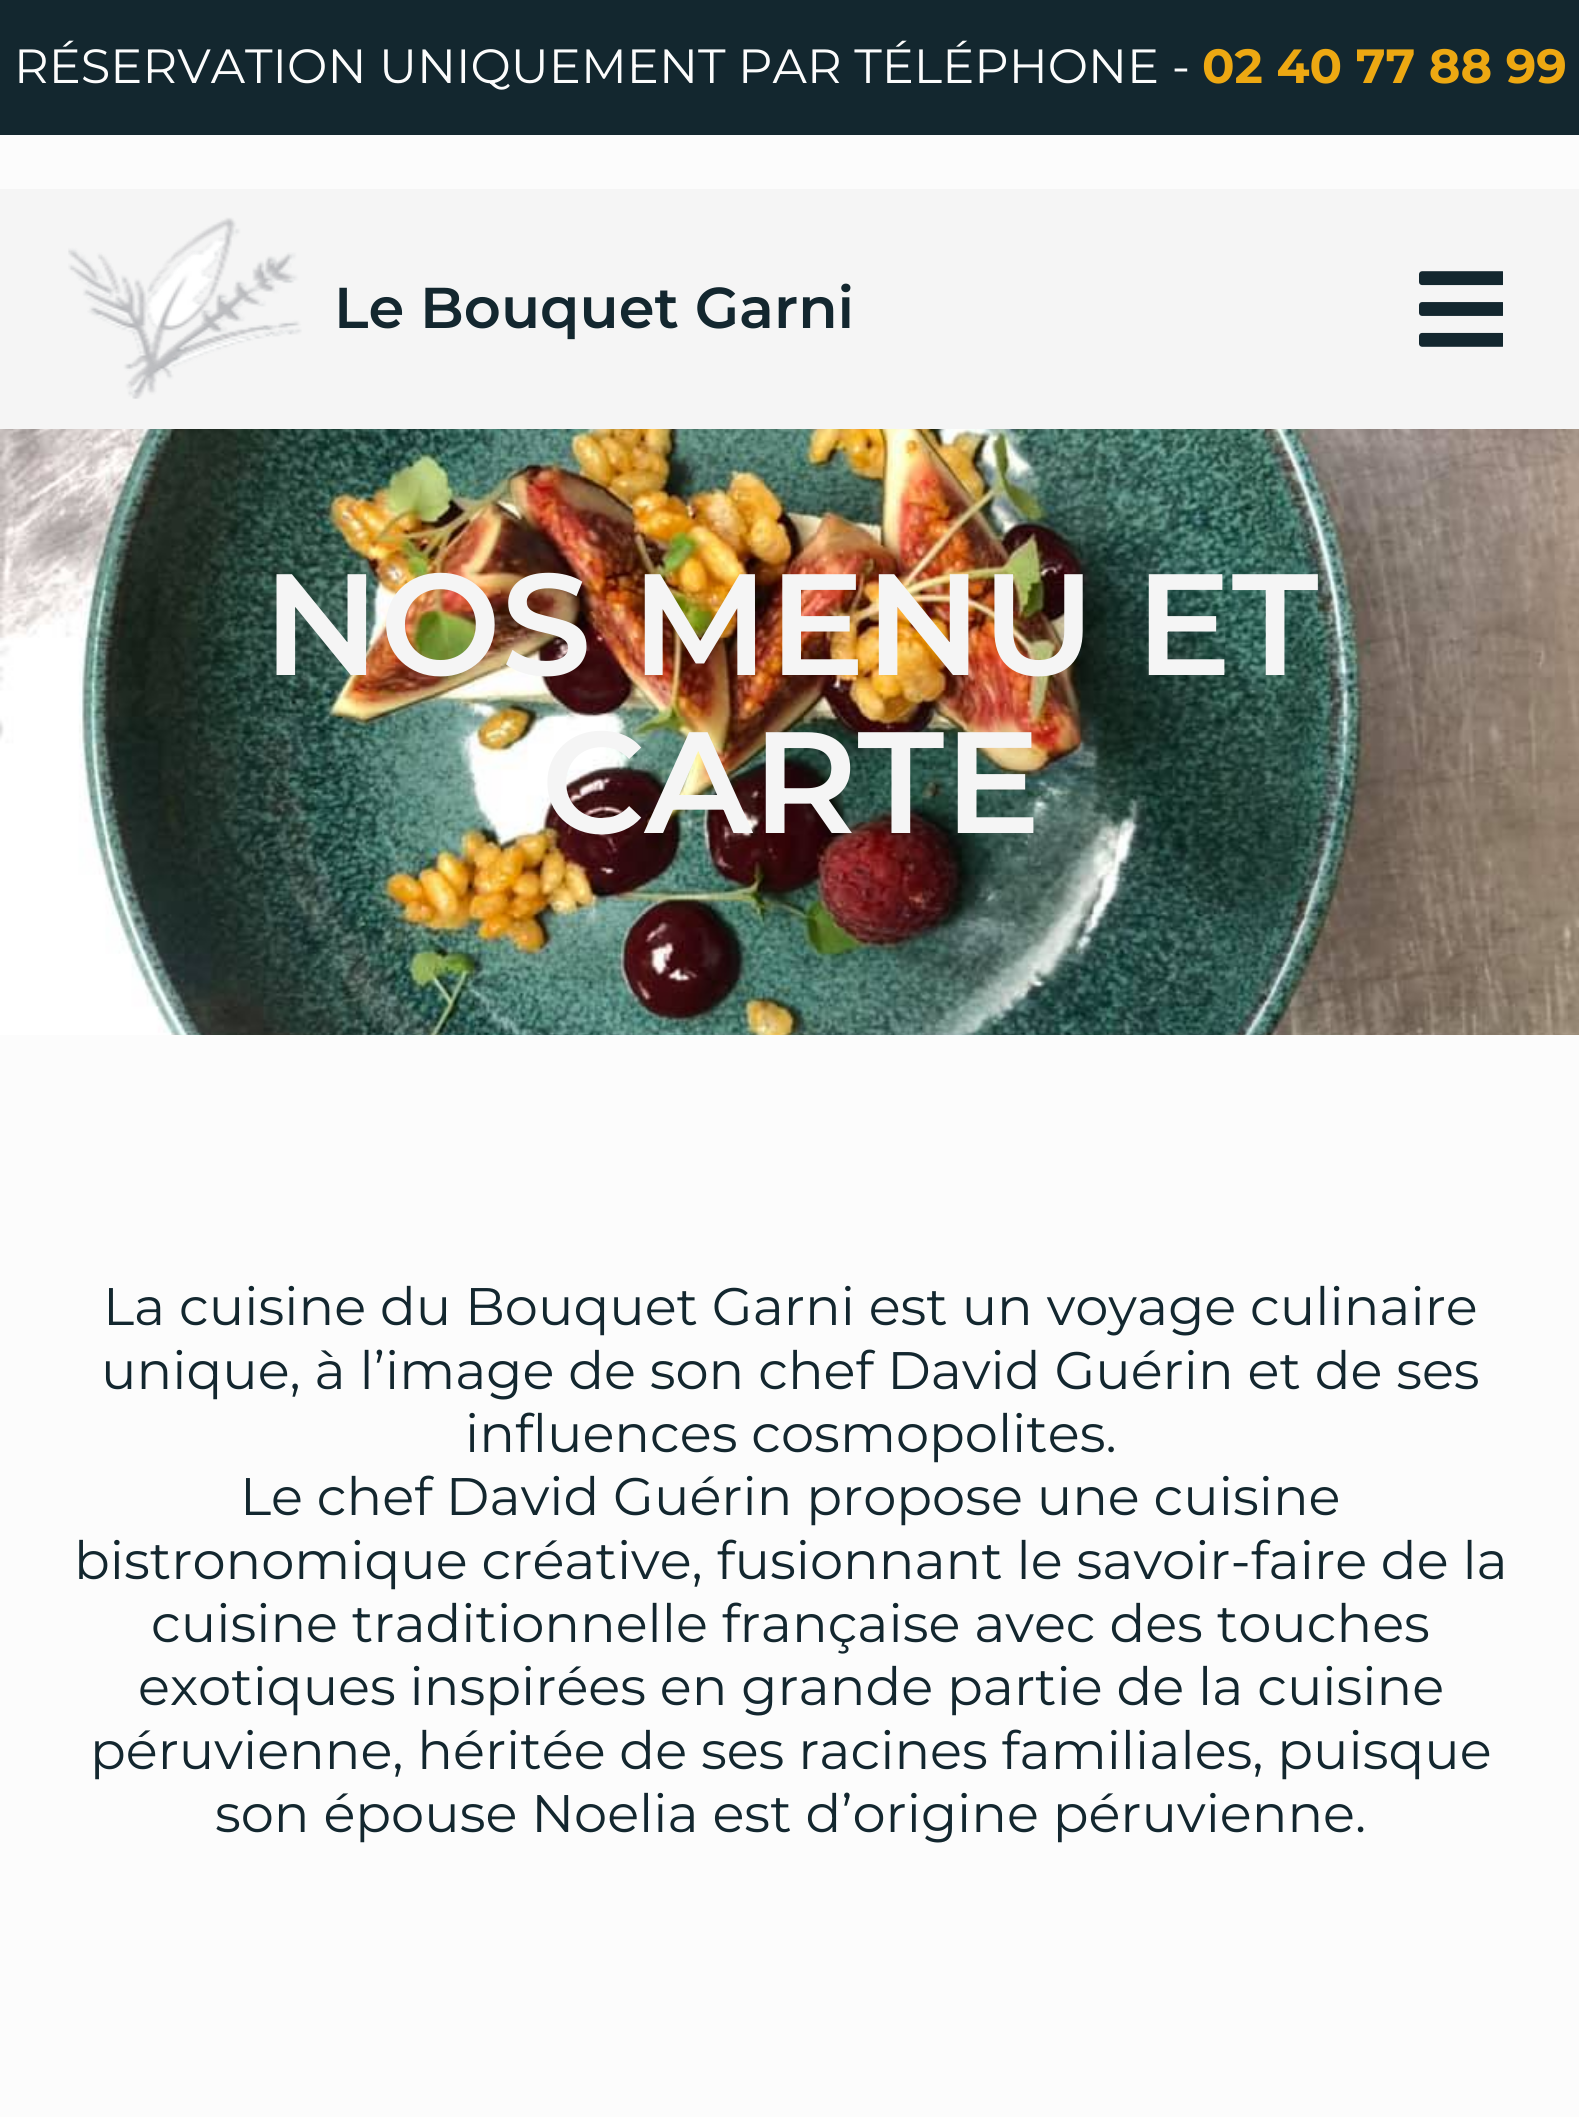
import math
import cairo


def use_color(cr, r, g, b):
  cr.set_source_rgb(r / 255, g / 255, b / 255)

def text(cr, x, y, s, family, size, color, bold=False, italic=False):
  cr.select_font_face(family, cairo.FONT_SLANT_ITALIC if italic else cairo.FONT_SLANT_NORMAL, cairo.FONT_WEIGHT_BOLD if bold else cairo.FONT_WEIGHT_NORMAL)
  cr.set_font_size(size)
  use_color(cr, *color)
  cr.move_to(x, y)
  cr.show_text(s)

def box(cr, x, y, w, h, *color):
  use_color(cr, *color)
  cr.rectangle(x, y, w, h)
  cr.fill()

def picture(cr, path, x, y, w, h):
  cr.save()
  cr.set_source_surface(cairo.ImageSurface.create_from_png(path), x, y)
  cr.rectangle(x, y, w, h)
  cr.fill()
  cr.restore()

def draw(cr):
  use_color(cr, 252, 252, 252)
  cr.paint()
  box(cr, 0, 0, 1579, 135, 19, 39, 47)
  box(cr, 0, 189, 1579, 240, 245, 245, 245)
  picture(cr, "img_01.png", 68, 217, 234, 182)
  picture(cr, "img_02.png", 1419, 271, 84, 76)
  picture(cr, "img_03.png", 0, 429, 1579, 606)
  text(cr, 14, 83, "RÉSERVATION UNIQUEMENT PAR TÉLÉPHONE -", "Montserrat", 48, (252, 252, 252))
  text(cr, 1202, 83, "02 40 77 88 99", "Montserrat", 48, (237, 168, 18), bold=True)
  text(cr, 334, 328, "Le Bouquet Garni", "Montserrat SemiBold", 57.5, (19, 39, 47))
  text(cr, 263, 675, "NOS MENU ET", "Montserrat SemiBold", 144, (245, 245, 245))
  text(cr, 541, 833, "CARTE", "Montserrat SemiBold", 144, (245, 245, 245))
  text(cr, 103, 1325, "La cuisine du Bouquet Garni est un voyage culinaire", "Montserrat", 52.8, (19, 39, 47))
  text(cr, 101, 1389, "unique, à l’image de son chef David Guérin et de ses", "Montserrat", 52.8, (19, 39, 47))
  text(cr, 465, 1452, "influences cosmopolites.", "Montserrat", 52.8, (19, 39, 47))
  text(cr, 240, 1515, "Le chef David Guérin propose une cuisine", "Montserrat", 52.8, (19, 39, 47))
  text(cr, 74, 1579, "bistronomique créative, fusionnant le savoir-faire de la", "Montserrat", 52.8, (19, 39, 47))
  text(cr, 151, 1642, "cuisine traditionnelle française avec des touches", "Montserrat", 52.8, (19, 39, 47))
  text(cr, 138, 1705, "exotiques inspirées en grande partie de la cuisine", "Montserrat", 52.8, (19, 39, 47))
  text(cr, 90, 1769, "péruvienne, héritée de ses racines familiales, puisque", "Montserrat", 52.8, (19, 39, 47))
  text(cr, 215, 1832, "son épouse Noelia est d’origine péruvienne.", "Montserrat", 52.8, (19, 39, 47))


surface = cairo.ImageSurface(cairo.FORMAT_RGB24, 1579, 2117)
cr = cairo.Context(surface)
options = cairo.FontOptions()
options.set_hint_metrics(cairo.HINT_METRICS_OFF)
options.set_hint_style(cairo.HINT_STYLE_NONE)
cr.set_font_options(options)
cr.set_miter_limit(4)
draw(cr)
surface.write_to_png("out.png")
